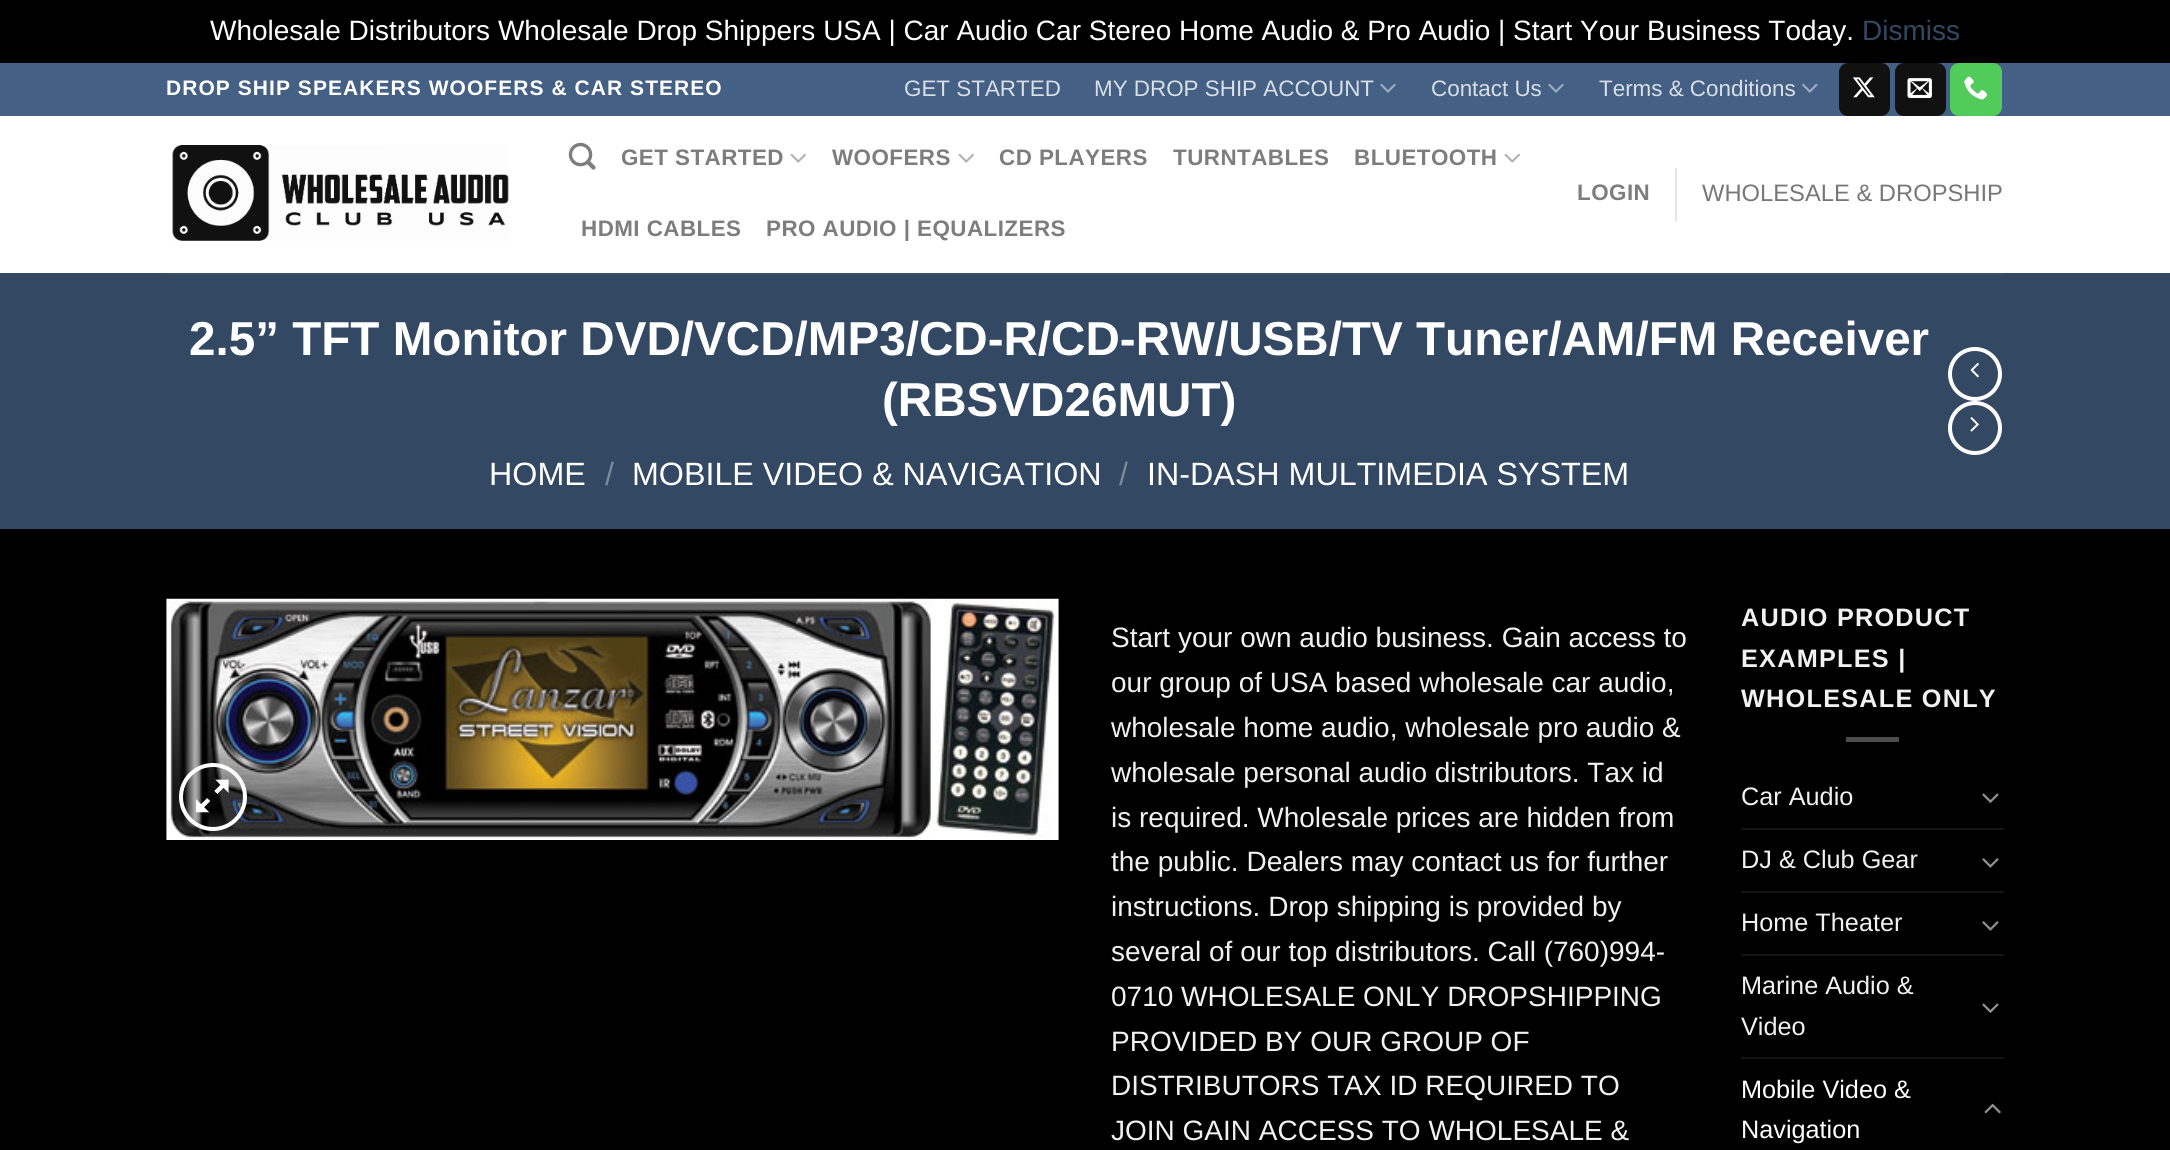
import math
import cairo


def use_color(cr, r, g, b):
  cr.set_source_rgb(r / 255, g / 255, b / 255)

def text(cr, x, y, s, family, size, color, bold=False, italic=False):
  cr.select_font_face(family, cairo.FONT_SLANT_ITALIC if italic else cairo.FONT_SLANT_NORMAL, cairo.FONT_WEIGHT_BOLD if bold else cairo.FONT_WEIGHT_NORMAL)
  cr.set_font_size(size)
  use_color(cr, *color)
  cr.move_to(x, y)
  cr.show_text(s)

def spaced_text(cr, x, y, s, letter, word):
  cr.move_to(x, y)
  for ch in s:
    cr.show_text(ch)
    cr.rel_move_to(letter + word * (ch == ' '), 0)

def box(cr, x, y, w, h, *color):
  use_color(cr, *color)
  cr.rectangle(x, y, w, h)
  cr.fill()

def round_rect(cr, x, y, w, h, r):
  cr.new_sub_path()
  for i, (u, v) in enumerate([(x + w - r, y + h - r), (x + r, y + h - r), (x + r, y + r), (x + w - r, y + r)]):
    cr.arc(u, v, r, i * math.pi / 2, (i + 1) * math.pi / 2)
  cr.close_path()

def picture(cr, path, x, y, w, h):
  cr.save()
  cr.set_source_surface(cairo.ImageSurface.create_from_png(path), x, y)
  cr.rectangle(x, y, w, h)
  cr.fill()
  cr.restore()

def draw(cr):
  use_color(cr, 0, 0, 0)
  cr.paint()
  box(cr, 0, 63, 2170, 53, 68, 96, 132)
  picture(cr, "img_01.png", 1380, 83, 16, 10)
  picture(cr, "img_01.png", 1548, 83, 16, 10)
  picture(cr, "img_02.png", 1802, 83, 16, 10)
  use_color(cr, 17, 17, 17)
  round_rect(cr, 1840, 64, 49, 51, 8)
  cr.fill_preserve()
  cr.stroke()
  picture(cr, "img_03.png", 1852, 77, 23, 21)
  round_rect(cr, 1896, 64, 49, 51, 8)
  cr.fill_preserve()
  cr.stroke()
  picture(cr, "img_04.png", 1907, 78, 25, 20)
  use_color(cr, 81, 203, 90)
  round_rect(cr, 1951, 64, 50, 51, 8)
  cr.fill_preserve()
  cr.stroke()
  picture(cr, "img_05.png", 1964, 76, 24, 24)
  box(cr, 0, 116, 2170, 157, 255, 255, 255)
  picture(cr, "img_06.png", 172, 145, 337, 96)
  picture(cr, "img_07.png", 568, 142, 28, 28)
  picture(cr, "img_08.png", 790, 153, 16, 10)
  picture(cr, "img_08.png", 958, 153, 16, 10)
  picture(cr, "img_08.png", 1504, 153, 16, 10)
  box(cr, 1675, 168, 2, 53, 230, 230, 230)
  box(cr, 0, 273, 2170, 256, 51, 72, 99)
  box(cr, 166, 273, 1838, 2, 58, 77, 101)
  cr.arc(1975, 374, 25, 0, 2 * math.pi)
  use_color(cr, 255, 255, 255)
  cr.set_line_width(4)
  cr.stroke()
  picture(cr, "img_09.png", 1970, 362, 9, 16)
  cr.arc(1975, 428, 25, 0, 2 * math.pi)
  cr.stroke()
  picture(cr, "img_10.png", 1970, 417, 9, 15)
  picture(cr, "img_11.png", 166, 598, 893, 242)
  cr.arc(213, 797, 32, 0, 2 * math.pi)
  cr.stroke()
  picture(cr, "img_12.png", 196, 779, 33, 34)
  box(cr, 1846, 737, 53, 5, 77, 77, 77)
  picture(cr, "img_13.png", 1982, 793, 17, 10)
  box(cr, 1741, 828, 263, 2, 20, 20, 20)
  picture(cr, "img_14.png", 1982, 858, 17, 10)
  box(cr, 1741, 891, 263, 2, 20, 20, 20)
  picture(cr, "img_14.png", 1982, 921, 17, 10)
  box(cr, 1741, 954, 263, 2, 20, 20, 20)
  picture(cr, "img_13.png", 1982, 1003, 17, 10)
  box(cr, 1741, 1057, 263, 2, 20, 20, 20)
  picture(cr, "img_15.png", 1984, 1103, 17, 11)
  text(cr, 210, 40, "Wholesale Distributors Wholesale Drop Shippers USA | Car Audio Car Stereo Home Audio & Pro Audio | Start Your Business Today.", "Liberation Sans", 28, (255, 255, 255))
  text(cr, 1862, 40, "Dismiss", "Liberation Sans", 28, (51, 72, 98))
  cr.select_font_face("Liberation Sans", cairo.FONT_SLANT_NORMAL, cairo.FONT_WEIGHT_BOLD)
  cr.set_font_size(21)
  use_color(cr, 255, 255, 255)
  spaced_text(cr, 166, 95, "DROP SHIP SPEAKERS WOOFERS & CAR STEREO", 1.05, 0)
  text(cr, 904, 96, "GET STARTED", "Liberation Sans", 22.4, (218, 223, 230))
  text(cr, 1094, 96, "MY DROP SHIP ACCOUNT", "Liberation Sans", 22.4, (218, 223, 230))
  text(cr, 1431, 96, "Contact Us", "Liberation Sans", 22.4, (218, 223, 230))
  text(cr, 1599, 96, "Terms & Conditions", "Liberation Sans", 22.4, (218, 223, 230))
  cr.select_font_face("Liberation Sans", cairo.FONT_SLANT_NORMAL, cairo.FONT_WEIGHT_BOLD)
  use_color(cr, 125, 125, 125)
  spaced_text(cr, 621, 165, "GET STARTED", 0.45, 0)
  spaced_text(cr, 832, 165, "WOOFERS", 0.45, 0)
  spaced_text(cr, 999, 165, "CD PLAYERS", 0.45, 0)
  spaced_text(cr, 1173, 165, "TURNTABLES", 0.45, 0)
  spaced_text(cr, 1354, 165, "BLUETOOTH", 0.45, 0)
  spaced_text(cr, 581, 236, "HDMI CABLES", 0.45, 0)
  spaced_text(cr, 766, 236, "PRO AUDIO | EQUALIZERS", 0.45, 0)
  spaced_text(cr, 1577, 200, "LOGIN", 0.45, 0)
  text(cr, 1702, 201, "WHOLESALE & DROPSHIP", "Liberation Sans", 23.75, (119, 119, 119))
  text(cr, 189, 355, "2.5” TFT Monitor DVD/VCD/MP3/CD-R/CD-RW/USB/TV Tuner/AM/FM Receiver", "Liberation Sans", 47.6, (255, 255, 255), bold=True)
  text(cr, 882, 416, "(RBSVD26MUT)", "Liberation Sans", 47.6, (255, 255, 255), bold=True)
  text(cr, 489, 485, "HOME", "Liberation Sans", 32.25, (255, 255, 255))
  text(cr, 605, 485, "/", "Liberation Sans", 32.25, (122, 136, 154))
  text(cr, 632, 485, "MOBILE VIDEO & NAVIGATION", "Liberation Sans", 32.25, (255, 255, 255))
  text(cr, 1119, 485, "/", "Liberation Sans", 32.25, (122, 136, 154))
  text(cr, 1147, 485, "IN-DASH MULTIMEDIA SYSTEM", "Liberation Sans", 32.25, (255, 255, 255))
  text(cr, 1111, 647, "Start your own audio business. Gain access to", "Liberation Sans", 28, (241, 241, 241))
  text(cr, 1111, 692, "our group of USA based wholesale car audio,", "Liberation Sans", 28, (241, 241, 241))
  text(cr, 1111, 737, "wholesale home audio, wholesale pro audio &", "Liberation Sans", 28, (241, 241, 241))
  text(cr, 1111, 782, "wholesale personal audio distributors. Tax id", "Liberation Sans", 28, (241, 241, 241))
  text(cr, 1111, 827, "is required. Wholesale prices are hidden from", "Liberation Sans", 28, (241, 241, 241))
  text(cr, 1111, 871, "the public. Dealers may contact us for further", "Liberation Sans", 28, (241, 241, 241))
  text(cr, 1111, 916, "instructions. Drop shipping is provided by", "Liberation Sans", 28, (241, 241, 241))
  text(cr, 1111, 961, "several of our top distributors. Call (760)994-", "Liberation Sans", 28, (241, 241, 241))
  text(cr, 1111, 1006, "0710 WHOLESALE ONLY DROPSHIPPING", "Liberation Sans", 28, (241, 241, 241))
  text(cr, 1111, 1051, "PROVIDED BY OUR GROUP OF", "Liberation Sans", 28, (241, 241, 241))
  text(cr, 1111, 1095, "DISTRIBUTORS TAX ID REQUIRED TO", "Liberation Sans", 28, (241, 241, 241))
  text(cr, 1111, 1140, "JOIN GAIN ACCESS TO WHOLESALE &", "Liberation Sans", 28, (241, 241, 241))
  cr.select_font_face("Liberation Sans", cairo.FONT_SLANT_NORMAL, cairo.FONT_WEIGHT_BOLD)
  cr.set_font_size(25.25)
  spaced_text(cr, 1741, 626, "AUDIO PRODUCT", 1.25, 0)
  spaced_text(cr, 1741, 667, "EXAMPLES |", 1.25, 0)
  spaced_text(cr, 1741, 707, "WHOLESALE ONLY", 1.25, 0)
  text(cr, 1741, 805, "Car Audio", "Liberation Sans", 25.25, (241, 241, 241))
  text(cr, 1741, 868, "DJ & Club Gear", "Liberation Sans", 25.25, (241, 241, 241))
  text(cr, 1741, 931, "Home Theater", "Liberation Sans", 25.25, (241, 241, 241))
  text(cr, 1741, 994, "Marine Audio &", "Liberation Sans", 25.25, (241, 241, 241))
  text(cr, 1741, 1035, "Video", "Liberation Sans", 25.25, (241, 241, 241))
  text(cr, 1741, 1098, "Mobile Video &", "Liberation Sans", 25.25, (255, 255, 255))
  text(cr, 1741, 1138, "Navigation", "Liberation Sans", 25.25, (255, 255, 255))


surface = cairo.ImageSurface(cairo.FORMAT_RGB24, 2170, 1150)
cr = cairo.Context(surface)
options = cairo.FontOptions()
options.set_hint_metrics(cairo.HINT_METRICS_OFF)
options.set_hint_style(cairo.HINT_STYLE_NONE)
cr.set_font_options(options)
cr.set_miter_limit(4)
draw(cr)
surface.write_to_png("out.png")
